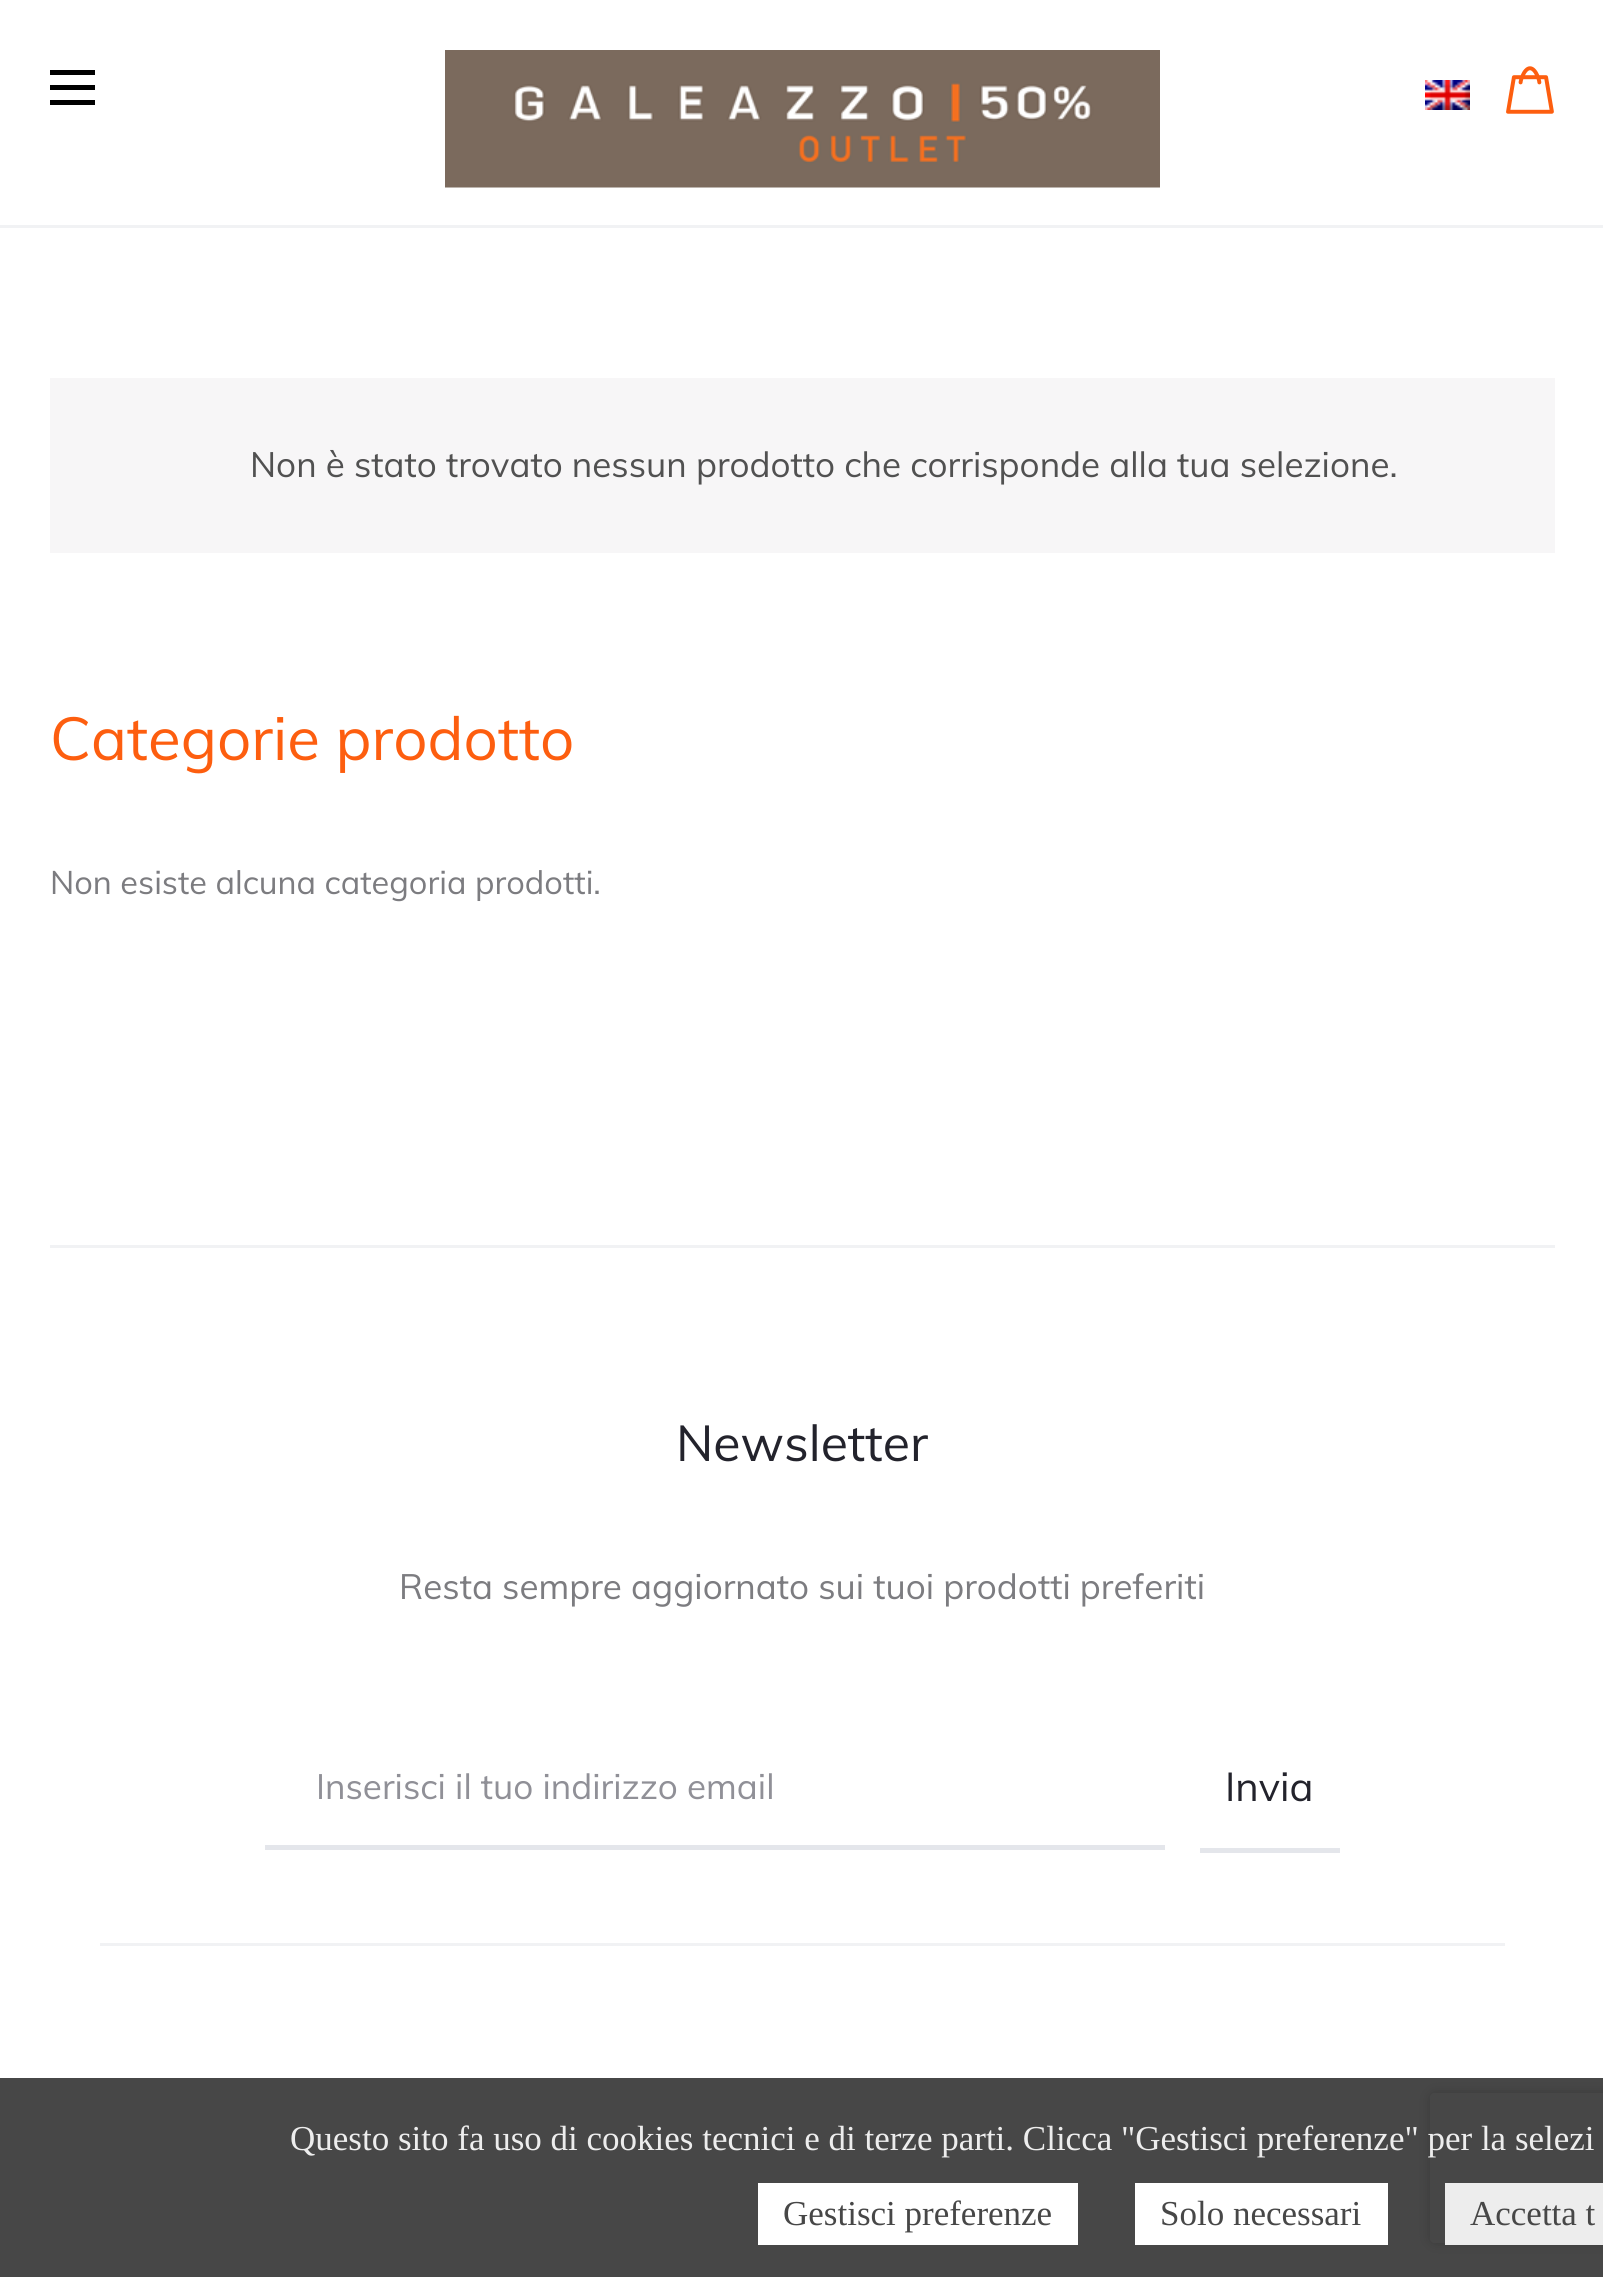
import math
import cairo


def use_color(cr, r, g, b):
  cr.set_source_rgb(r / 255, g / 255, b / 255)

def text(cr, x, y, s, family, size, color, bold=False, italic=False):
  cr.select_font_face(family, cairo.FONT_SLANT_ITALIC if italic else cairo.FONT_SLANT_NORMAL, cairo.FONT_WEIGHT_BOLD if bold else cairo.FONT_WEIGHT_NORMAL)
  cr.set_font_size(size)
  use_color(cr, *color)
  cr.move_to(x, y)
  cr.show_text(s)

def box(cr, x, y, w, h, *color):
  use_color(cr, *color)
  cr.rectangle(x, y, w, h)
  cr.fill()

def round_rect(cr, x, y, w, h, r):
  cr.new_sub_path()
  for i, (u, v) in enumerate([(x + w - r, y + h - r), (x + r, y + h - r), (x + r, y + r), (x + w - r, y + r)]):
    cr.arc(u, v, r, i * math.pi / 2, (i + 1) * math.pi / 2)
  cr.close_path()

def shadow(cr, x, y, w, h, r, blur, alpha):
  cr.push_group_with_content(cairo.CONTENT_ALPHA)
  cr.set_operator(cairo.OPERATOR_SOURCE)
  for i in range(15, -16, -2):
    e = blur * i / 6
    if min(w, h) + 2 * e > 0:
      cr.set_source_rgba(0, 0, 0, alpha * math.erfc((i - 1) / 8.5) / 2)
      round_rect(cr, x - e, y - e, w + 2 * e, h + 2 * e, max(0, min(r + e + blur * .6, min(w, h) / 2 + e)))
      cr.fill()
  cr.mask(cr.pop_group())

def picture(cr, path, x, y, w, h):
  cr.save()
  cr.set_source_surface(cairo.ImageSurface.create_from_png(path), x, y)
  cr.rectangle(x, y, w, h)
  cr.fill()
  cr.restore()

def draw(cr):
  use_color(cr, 255, 255, 255)
  cr.paint()
  box(cr, 0, 225, 1603, 3, 241, 242, 244)
  box(cr, 50, 85, 45, 5, 0, 0, 0)
  box(cr, 50, 70, 45, 5, 0, 0, 0)
  box(cr, 50, 100, 45, 5, 0, 0, 0)
  picture(cr, "img_01.png", 445, 50, 715, 138)
  picture(cr, "img_02.png", 1425, 80, 45, 30)
  picture(cr, "img_03.png", 1506, 66, 48, 48)
  box(cr, 50, 378, 1505, 175, 247, 246, 247)
  box(cr, 50, 1245, 1505, 3, 241, 242, 244)
  box(cr, 265, 1845, 900, 5, 228, 230, 235)
  box(cr, 1200, 1848, 140, 5, 228, 230, 235)
  box(cr, 100, 1943, 1405, 3, 241, 242, 244)
  cr.save()
  cr.set_fill_rule(cairo.FILL_RULE_EVEN_ODD)
  cr.new_path()
  cr.move_to(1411, 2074)
  cr.line_to(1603, 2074)
  cr.line_to(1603, 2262)
  cr.line_to(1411, 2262)
  cr.close_path()
  cr.move_to(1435, 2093)
  cr.line_to(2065, 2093)
  cr.curve_to(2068, 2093, 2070, 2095, 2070, 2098)
  cr.line_to(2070, 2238)
  cr.curve_to(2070, 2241, 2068, 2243, 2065, 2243)
  cr.line_to(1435, 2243)
  cr.curve_to(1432, 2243, 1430, 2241, 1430, 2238)
  cr.line_to(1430, 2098)
  cr.curve_to(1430, 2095, 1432, 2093, 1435, 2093)
  cr.close_path()
  cr.clip()
  use_color(cr, 128, 128, 128)
  shadow(cr, 1430, 2093, 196, 150, 5, 6, 1)
  cr.restore()
  cr.set_source_rgba(0.2, 0.2, 0.2, 0.9)
  cr.rectangle(0, 2078, 1603, 199)
  cr.fill()
  box(cr, 758, 2183, 320, 62, 255, 255, 255)
  box(cr, 1135, 2183, 253, 62, 255, 255, 255)
  cr.set_source_rgba(1, 1, 1, 0.9)
  cr.rectangle(1445, 2183, 158, 62)
  cr.fill()
  text(cr, 250, 477, "Non è stato trovato nessun prodotto che corrisponde alla tua selezione.", "Muli", 35, (81, 81, 81))
  text(cr, 50, 760, "Categorie prodotto", "Muli", 60, (253, 94, 15))
  text(cr, 50, 894, "Non esiste alcuna categoria prodotti.", "Muli", 32.5, (124, 124, 128))
  text(cr, 676, 1461, "Newsletter", "Muli", 50, (35, 35, 44))
  text(cr, 399, 1599, "Resta sempre aggiornato sui tuoi prodotti preferiti", "Muli", 35, (124, 124, 128))
  text(cr, 316, 1799, "Inserisci il tuo indirizzo email", "Muli", 35, (144, 144, 151))
  text(cr, 1225, 1801, "Invia", "Muli", 40, (35, 35, 44))
  text(cr, 290, 2150, "Questo sito fa uso di cookies tecnici e di terze parti. Clicca \"Gestisci preferenze\" per la selezi", "Liberation Serif", 35, (237, 237, 237))
  text(cr, 783, 2225, "Gestisci preferenze", "Liberation Serif", 35, (71, 71, 71))
  text(cr, 1160, 2225, "Solo necessari", "Liberation Serif", 35, (71, 71, 71))
  text(cr, 1470, 2225, "Accetta t", "Liberation Serif", 35, (71, 71, 71))


surface = cairo.ImageSurface(cairo.FORMAT_RGB24, 1603, 2277)
cr = cairo.Context(surface)
options = cairo.FontOptions()
options.set_hint_metrics(cairo.HINT_METRICS_OFF)
options.set_hint_style(cairo.HINT_STYLE_NONE)
cr.set_font_options(options)
cr.set_miter_limit(4)
draw(cr)
surface.write_to_png("out.png")
